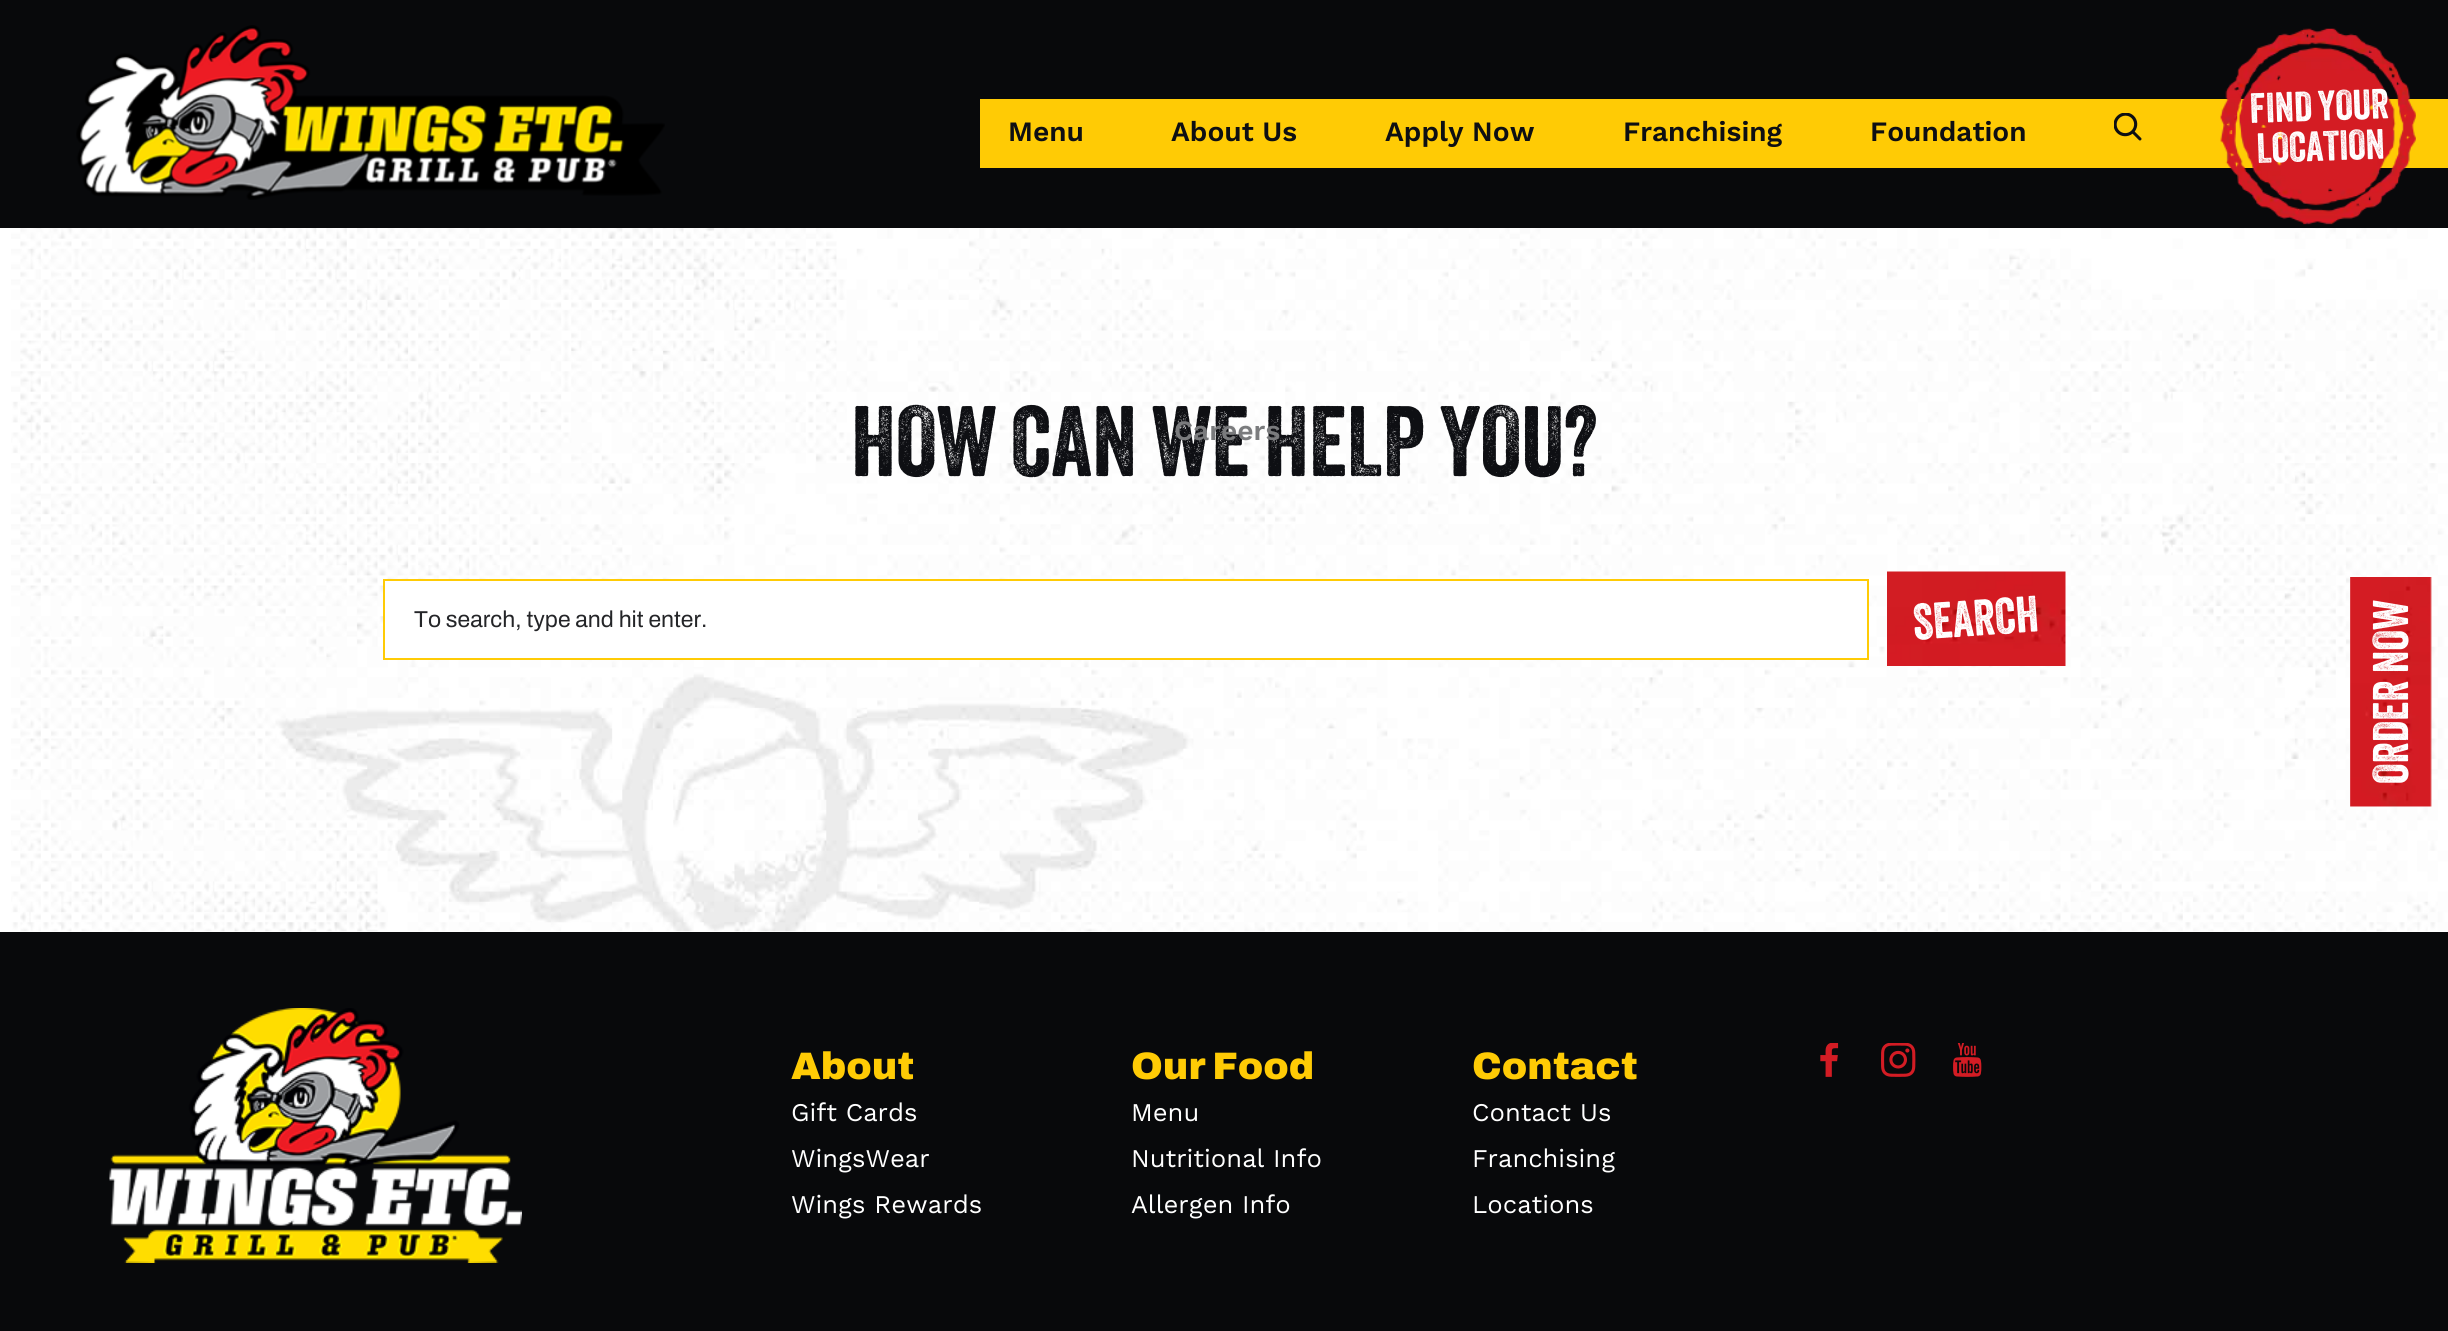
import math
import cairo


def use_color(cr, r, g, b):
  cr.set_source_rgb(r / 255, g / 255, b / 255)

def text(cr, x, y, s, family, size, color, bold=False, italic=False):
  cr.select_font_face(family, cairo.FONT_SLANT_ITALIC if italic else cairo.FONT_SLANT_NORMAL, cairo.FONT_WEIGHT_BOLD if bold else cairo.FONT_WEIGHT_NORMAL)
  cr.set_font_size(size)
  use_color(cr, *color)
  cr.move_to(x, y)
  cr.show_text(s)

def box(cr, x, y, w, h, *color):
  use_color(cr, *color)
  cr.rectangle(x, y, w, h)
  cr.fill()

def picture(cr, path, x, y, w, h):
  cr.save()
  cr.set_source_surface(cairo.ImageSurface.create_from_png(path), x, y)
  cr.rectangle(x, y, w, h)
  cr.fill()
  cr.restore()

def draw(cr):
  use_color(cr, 8, 9, 11)
  cr.paint()
  picture(cr, "img_01.png", 76, 25, 589, 175)
  box(cr, 980, 99, 1468, 69, 255, 203, 5)
  picture(cr, "img_02.png", 2114, 113, 28, 28)
  picture(cr, "img_03.png", 2220, 28, 196, 197)
  box(cr, 0, 228, 2448, 704, 255, 255, 255)
  picture(cr, "img_04.png", 11, 228, 2437, 704)
  cr.rectangle(384, 580, 1484, 79)
  cr.fill_preserve()
  use_color(cr, 255, 203, 5)
  cr.stroke()
  picture(cr, "img_05.png", 1887, 571, 179, 95)
  picture(cr, "img_06.png", 2350, 577, 82, 230)
  picture(cr, "img_07.png", 109, 1008, 413, 255)
  picture(cr, "img_08.png", 1820, 1043, 19, 34)
  picture(cr, "img_09.png", 1881, 1043, 35, 34)
  picture(cr, "img_10.png", 1953, 1043, 29, 34)
  text(cr, 1008, 141, "Menu", "Work Sans SemiBold", 28, (14, 15, 19))
  text(cr, 1171, 141, "About Us", "Work Sans SemiBold", 28, (14, 15, 19))
  text(cr, 1385, 141, "Apply Now", "Work Sans SemiBold", 28, (14, 15, 19))
  text(cr, 1623, 141, "Franchising", "Work Sans SemiBold", 28, (14, 15, 19))
  text(cr, 1870, 141, "Foundation", "Work Sans SemiBold", 28, (14, 15, 19))
  cr.save()
  cr.translate(2250, 123)
  cr.rotate(-2 * math.pi / 180)
  text(cr, 0, 0, "FIND YOUR", "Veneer", 41, (255, 255, 255))
  cr.restore()
  cr.save()
  cr.translate(2257, 163)
  cr.rotate(-2 * math.pi / 180)
  text(cr, 0, 0, "LOCATION", "Veneer", 41, (255, 255, 255))
  cr.restore()
  text(cr, 851, 476, "HOW CAN WE HELP YOU?", "Veneer", 96.75, (14, 15, 19))
  text(cr, 1174, 440, "Careers", "Work Sans SemiBold", 28, (122, 123, 125))
  text(cr, 414, 627, "To search, type and hit enter.", "Archivo", 23, (36, 37, 40))
  cr.save()
  cr.translate(1914, 640)
  cr.rotate(-4 * math.pi / 180)
  text(cr, 0, 0, "SEARCH", "Veneer", 49.5, (255, 255, 255))
  cr.restore()
  cr.save()
  cr.translate(2408, 784)
  cr.rotate(-90 * math.pi / 180)
  text(cr, 0, 0, "ORDER NOW", "Veneer", 48.5, (255, 255, 255))
  cr.restore()
  text(cr, 791, 1079, "About", "Archivo Black Black", 38.25, (255, 203, 5))
  text(cr, 791, 1121, "Gift Cards", "Work Sans", 25.5, (255, 255, 255))
  text(cr, 791, 1167, "WingsWear", "Work Sans", 25.5, (255, 255, 255))
  text(cr, 791, 1213, "Wings Rewards", "Work Sans", 25.5, (255, 255, 255))
  text(cr, 1131, 1079, "Our Food", "Archivo Black Black", 38.25, (255, 203, 5))
  text(cr, 1131, 1121, "Menu", "Work Sans", 25.5, (255, 255, 255))
  text(cr, 1131, 1167, "Nutritional Info", "Work Sans", 25.5, (255, 255, 255))
  text(cr, 1131, 1213, "Allergen Info", "Work Sans", 25.5, (255, 255, 255))
  text(cr, 1472, 1079, "Contact", "Archivo Black Black", 38.25, (255, 203, 5))
  text(cr, 1472, 1121, "Contact Us", "Work Sans", 25.5, (255, 255, 255))
  text(cr, 1472, 1167, "Franchising", "Work Sans", 25.5, (255, 255, 255))
  text(cr, 1472, 1213, "Locations", "Work Sans", 25.5, (255, 255, 255))


surface = cairo.ImageSurface(cairo.FORMAT_RGB24, 2448, 1331)
cr = cairo.Context(surface)
options = cairo.FontOptions()
options.set_hint_metrics(cairo.HINT_METRICS_OFF)
options.set_hint_style(cairo.HINT_STYLE_NONE)
cr.set_font_options(options)
cr.set_miter_limit(4)
draw(cr)
surface.write_to_png("out.png")
